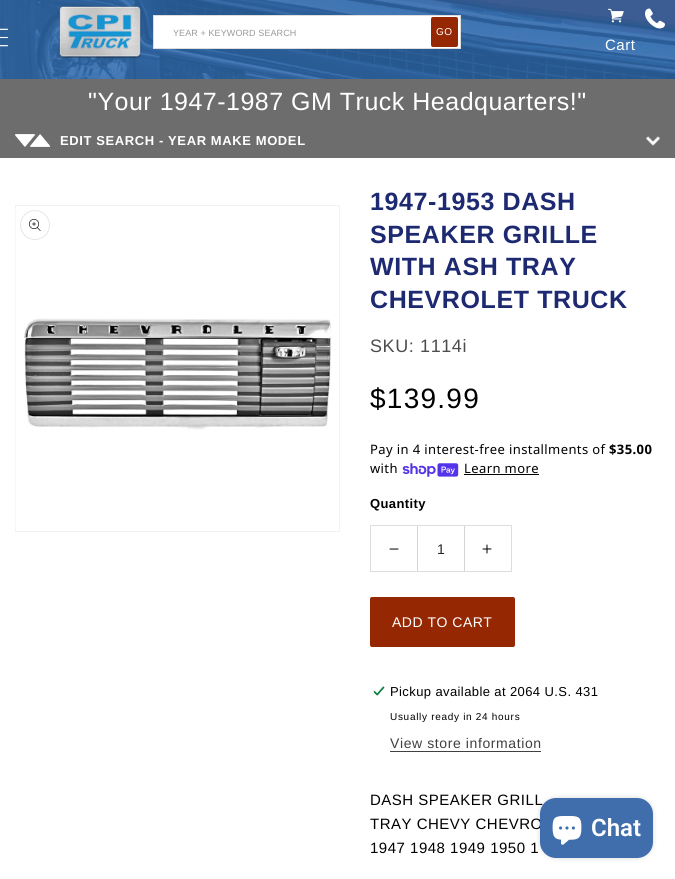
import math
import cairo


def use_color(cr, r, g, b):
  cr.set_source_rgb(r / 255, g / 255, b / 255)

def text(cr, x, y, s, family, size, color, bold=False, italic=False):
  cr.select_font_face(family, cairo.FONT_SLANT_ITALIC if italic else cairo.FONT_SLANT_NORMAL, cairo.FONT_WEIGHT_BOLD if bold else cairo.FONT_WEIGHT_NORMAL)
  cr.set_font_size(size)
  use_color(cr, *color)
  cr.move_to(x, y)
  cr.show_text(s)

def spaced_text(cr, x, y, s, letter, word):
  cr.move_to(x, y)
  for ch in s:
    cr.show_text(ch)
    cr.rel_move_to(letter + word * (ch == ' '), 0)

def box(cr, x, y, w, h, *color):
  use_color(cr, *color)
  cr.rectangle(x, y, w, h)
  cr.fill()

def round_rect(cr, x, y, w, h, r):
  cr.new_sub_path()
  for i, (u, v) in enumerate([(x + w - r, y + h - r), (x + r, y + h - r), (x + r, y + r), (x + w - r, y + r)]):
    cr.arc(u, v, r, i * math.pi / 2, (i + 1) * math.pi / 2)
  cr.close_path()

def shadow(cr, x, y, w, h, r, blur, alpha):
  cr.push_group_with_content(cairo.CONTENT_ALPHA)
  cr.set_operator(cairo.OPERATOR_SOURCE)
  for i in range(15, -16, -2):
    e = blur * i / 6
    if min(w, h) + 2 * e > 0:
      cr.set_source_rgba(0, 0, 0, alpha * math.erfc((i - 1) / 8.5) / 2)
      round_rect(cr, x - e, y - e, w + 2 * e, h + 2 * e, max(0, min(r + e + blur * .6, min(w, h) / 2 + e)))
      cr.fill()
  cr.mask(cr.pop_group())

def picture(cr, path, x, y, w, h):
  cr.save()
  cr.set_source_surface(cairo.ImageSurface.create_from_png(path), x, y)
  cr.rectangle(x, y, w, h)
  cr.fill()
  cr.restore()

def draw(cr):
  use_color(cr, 255, 255, 255)
  cr.paint()
  box(cr, 0, 0, 675, 79, 42, 106, 178)
  picture(cr, "img_01.png", 0, 0, 675, 79)
  picture(cr, "img_02.png", 0, 28, 8, 19)
  picture(cr, "img_03.png", 58, 5, 84, 54)
  use_color(cr, 255, 255, 255)
  cr.rectangle(153.5, 15.5, 307, 33)
  cr.fill_preserve()
  use_color(cr, 221, 221, 221)
  cr.set_line_width(1)
  cr.stroke()
  use_color(cr, 149, 39, 3)
  round_rect(cr, 431, 17, 27, 30, 2)
  cr.fill()
  picture(cr, "img_04.png", 645, 8, 20, 21)
  picture(cr, "img_05.png", 608, 8, 16, 15)
  box(cr, 0, 79, 675, 79, 109, 109, 109)
  picture(cr, "img_06.png", 15, 134, 35, 13)
  picture(cr, "img_07.png", 646, 136, 14, 10)
  cr.rectangle(15.5, 205.5, 324, 326)
  use_color(cr, 242, 242, 242)
  cr.stroke()
  picture(cr, "img_08.png", 15, 208, 317, 321)
  cr.arc(35, 225, 14.5, 0, 2 * math.pi)
  use_color(cr, 230, 230, 230)
  cr.stroke()
  picture(cr, "img_09.png", 29, 219, 12, 12)
  picture(cr, "img_10.png", 402, 463, 57, 14)
  box(cr, 464, 474, 75, 1, 0, 0, 0)
  cr.rectangle(370.5, 525.5, 141, 46)
  use_color(cr, 221, 221, 221)
  cr.stroke()
  picture(cr, "img_11.png", 389, 548, 10, 2)
  box(cr, 464, 526, 1, 45, 212, 212, 212)
  box(cr, 417, 526, 1, 45, 212, 212, 212)
  picture(cr, "img_12.png", 482, 544, 10, 10)
  use_color(cr, 149, 39, 3)
  round_rect(cr, 370, 597, 145, 50, 2)
  cr.fill()
  picture(cr, "img_13.png", 373, 686, 12, 10)
  box(cr, 390, 751, 151, 1, 64, 64, 64)
  use_color(cr, 0, 0, 0)
  shadow(cr, 540, 798, 113, 60, 16, 2.5, 0.15)
  cr.select_font_face("Liberation Sans")
  cr.set_font_size(9)
  use_color(cr, 153, 153, 153)
  spaced_text(cr, 173, 36, "YEAR + KEYWORD SEARCH", 0.1, 0)
  cr.set_font_size(10)
  use_color(cr, 255, 255, 255)
  spaced_text(cr, 436, 35, "GO", 0.5, 0)
  cr.set_font_size(15)
  spaced_text(cr, 605, 50, "Cart", 0.5, 0)
  cr.set_font_size(25)
  spaced_text(cr, 88, 110, "\"Your 1947-1987 GM Truck Headquarters!\"", 0.5, 0)
  cr.select_font_face("Liberation Sans", cairo.FONT_SLANT_NORMAL, cairo.FONT_WEIGHT_BOLD)
  cr.set_font_size(13)
  spaced_text(cr, 60, 145, "EDIT SEARCH - YEAR MAKE MODEL", 0.6, 0)
  cr.set_font_size(25)
  use_color(cr, 29, 41, 112)
  spaced_text(cr, 370, 210, "1947-1953 DASH", 0.6, 0)
  spaced_text(cr, 370, 243, "SPEAKER GRILLE", 0.6, 0)
  spaced_text(cr, 370, 275, "WITH ASH TRAY", 0.6, 0)
  spaced_text(cr, 370, 308, "CHEVROLET TRUCK", 0.6, 0)
  cr.select_font_face("Liberation Sans")
  cr.set_font_size(18)
  use_color(cr, 77, 77, 77)
  spaced_text(cr, 370, 352, "SKU: 1114i", 0.6, 0)
  cr.set_font_size(28)
  use_color(cr, 0, 0, 0)
  spaced_text(cr, 370, 408, "$139.99", 1.25, 0)
  cr.select_font_face("Noto Sans")
  cr.set_font_size(13)
  spaced_text(cr, 370, 454, "Pay in 4 interest-free installments of", 0.4, 0)
  cr.select_font_face("Noto Sans", cairo.FONT_SLANT_NORMAL, cairo.FONT_WEIGHT_BOLD)
  spaced_text(cr, 609, 454, "$35.00", 0.4, 0)
  cr.select_font_face("Noto Sans")
  spaced_text(cr, 370, 473, "with", 0.4, 0)
  spaced_text(cr, 464, 473, "Learn more", 0.4, 0)
  cr.select_font_face("Liberation Sans", cairo.FONT_SLANT_NORMAL, cairo.FONT_WEIGHT_BOLD)
  spaced_text(cr, 370, 508, "Quantity", 0.4, 0)
  text(cr, 437, 554, "1", "Liberation Sans", 14, (38, 38, 38))
  use_color(cr, 255, 255, 255)
  spaced_text(cr, 392, 627, "ADD TO CART", 0.5, 0)
  cr.set_font_size(13)
  use_color(cr, 0, 0, 0)
  spaced_text(cr, 390, 696, "Pickup available at 2064 U.S. 431", 0.4, 0)
  cr.set_font_size(10)
  spaced_text(cr, 390, 720, "Usually ready in 24 hours", 0.7, 0)
  cr.set_font_size(14)
  use_color(cr, 64, 64, 64)
  spaced_text(cr, 390, 748, "View store information", 0.6, 0)
  cr.set_font_size(15)
  use_color(cr, 0, 0, 0)
  spaced_text(cr, 370, 805, "DASH SPEAKER GRILL", 0.5, 0)
  spaced_text(cr, 370, 829, "TRAY CHEVY CHEVRO", 0.5, 0)
  spaced_text(cr, 370, 853, "1947 1948 1949 1950 1", 0.5, 0)
  use_color(cr, 64, 110, 173)
  round_rect(cr, 540, 798, 113, 60, 16)
  cr.fill()
  picture(cr, "img_14.png", 552, 816, 30, 29)
  text(cr, 591, 836, "Chat", "Roboto SemiBold", 24, (255, 255, 255))


surface = cairo.ImageSurface(cairo.FORMAT_RGB24, 675, 879)
cr = cairo.Context(surface)
options = cairo.FontOptions()
options.set_hint_metrics(cairo.HINT_METRICS_OFF)
options.set_hint_style(cairo.HINT_STYLE_NONE)
cr.set_font_options(options)
cr.set_miter_limit(4)
draw(cr)
surface.write_to_png("out.png")
